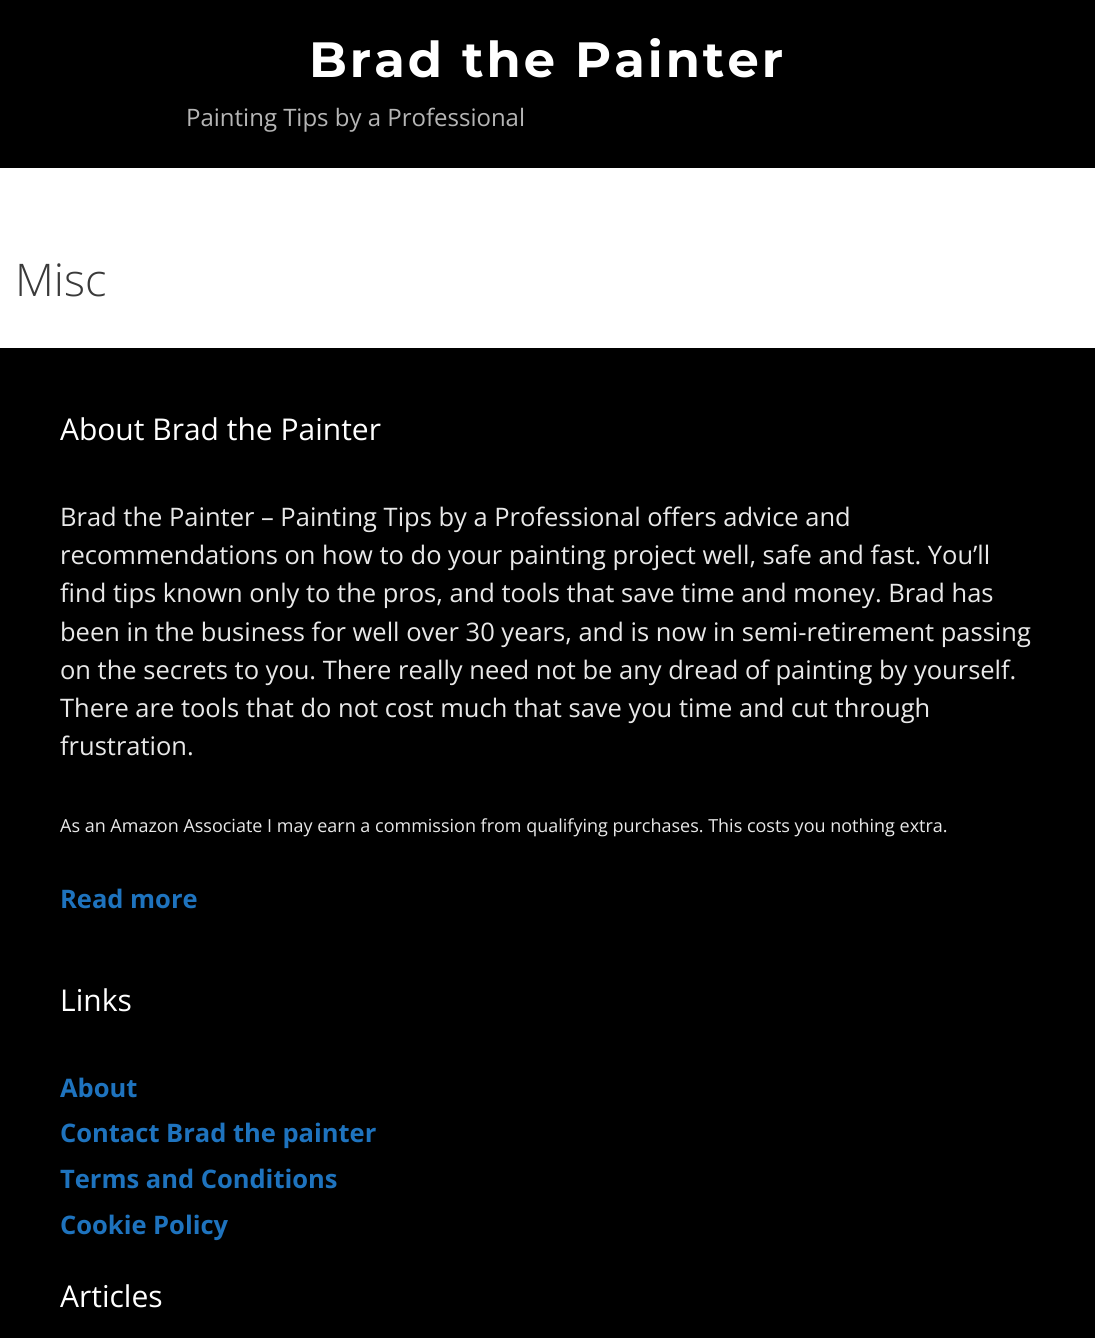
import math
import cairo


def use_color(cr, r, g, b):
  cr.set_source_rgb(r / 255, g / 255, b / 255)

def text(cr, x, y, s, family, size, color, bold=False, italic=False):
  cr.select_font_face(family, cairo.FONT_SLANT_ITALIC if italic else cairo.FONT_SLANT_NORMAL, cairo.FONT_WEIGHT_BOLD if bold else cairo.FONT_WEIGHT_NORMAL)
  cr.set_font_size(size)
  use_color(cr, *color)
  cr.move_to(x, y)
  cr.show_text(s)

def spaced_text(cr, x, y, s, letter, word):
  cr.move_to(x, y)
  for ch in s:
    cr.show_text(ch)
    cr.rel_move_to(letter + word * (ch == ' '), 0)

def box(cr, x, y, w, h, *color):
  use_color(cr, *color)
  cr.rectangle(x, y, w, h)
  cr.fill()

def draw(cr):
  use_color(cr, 255, 255, 255)
  cr.paint()
  box(cr, 0, 0, 1095, 168, 0, 0, 0)
  box(cr, 0, 348, 1095, 990, 0, 0, 0)
  cr.select_font_face("Montserrat", cairo.FONT_SLANT_NORMAL, cairo.FONT_WEIGHT_BOLD)
  cr.set_font_size(49.5)
  use_color(cr, 255, 255, 255)
  spaced_text(cr, 309, 77, "Brad the Painter", 3, 0)
  text(cr, 186, 126, "Painting Tips by a Professional", "Open Sans", 24, (181, 181, 181))
  text(cr, 15, 296, "Misc", "Open Sans Light", 45, (58, 58, 58))
  text(cr, 60, 440, "About Brad the Painter", "Open Sans", 30, (255, 255, 255))
  text(cr, 60, 526, "Brad the Painter – Painting Tips by a Professional offers advice and", "Open Sans", 25.5, (232, 232, 232))
  text(cr, 60, 564, "recommendations on how to do your painting project well, safe and fast. You’ll", "Open Sans", 25.5, (232, 232, 232))
  text(cr, 60, 602, "find tips known only to the pros, and tools that save time and money. Brad has", "Open Sans", 25.5, (232, 232, 232))
  text(cr, 60, 641, "been in the business for well over 30 years, and is now in semi-retirement passing", "Open Sans", 25.5, (232, 232, 232))
  text(cr, 60, 679, "on the secrets to you. There really need not be any dread of painting by yourself.", "Open Sans", 25.5, (232, 232, 232))
  text(cr, 60, 717, "There are tools that do not cost much that save you time and cut through", "Open Sans", 25.5, (232, 232, 232))
  text(cr, 60, 755, "frustration.", "Open Sans", 25.5, (232, 232, 232))
  text(cr, 60, 832, "As an Amazon Associate I may earn a commission from qualifying purchases. This costs you nothing extra.", "Open Sans", 18, (232, 232, 232))
  text(cr, 60, 908, "Read more", "Open Sans", 25.5, (30, 115, 190), bold=True)
  text(cr, 60, 1011, "Links", "Open Sans", 30, (255, 255, 255))
  text(cr, 60, 1097, "About", "Open Sans", 25.5, (30, 115, 190), bold=True)
  text(cr, 60, 1142, "Contact Brad the painter", "Open Sans", 25.5, (30, 115, 190), bold=True)
  text(cr, 60, 1188, "Terms and Conditions", "Open Sans", 25.5, (30, 115, 190), bold=True)
  text(cr, 60, 1234, "Cookie Policy", "Open Sans", 25.5, (30, 115, 190), bold=True)
  text(cr, 60, 1307, "Articles", "Open Sans", 30, (255, 255, 255))


surface = cairo.ImageSurface(cairo.FORMAT_RGB24, 1095, 1338)
cr = cairo.Context(surface)
options = cairo.FontOptions()
options.set_hint_metrics(cairo.HINT_METRICS_OFF)
options.set_hint_style(cairo.HINT_STYLE_NONE)
cr.set_font_options(options)
cr.set_miter_limit(4)
draw(cr)
surface.write_to_png("out.png")
